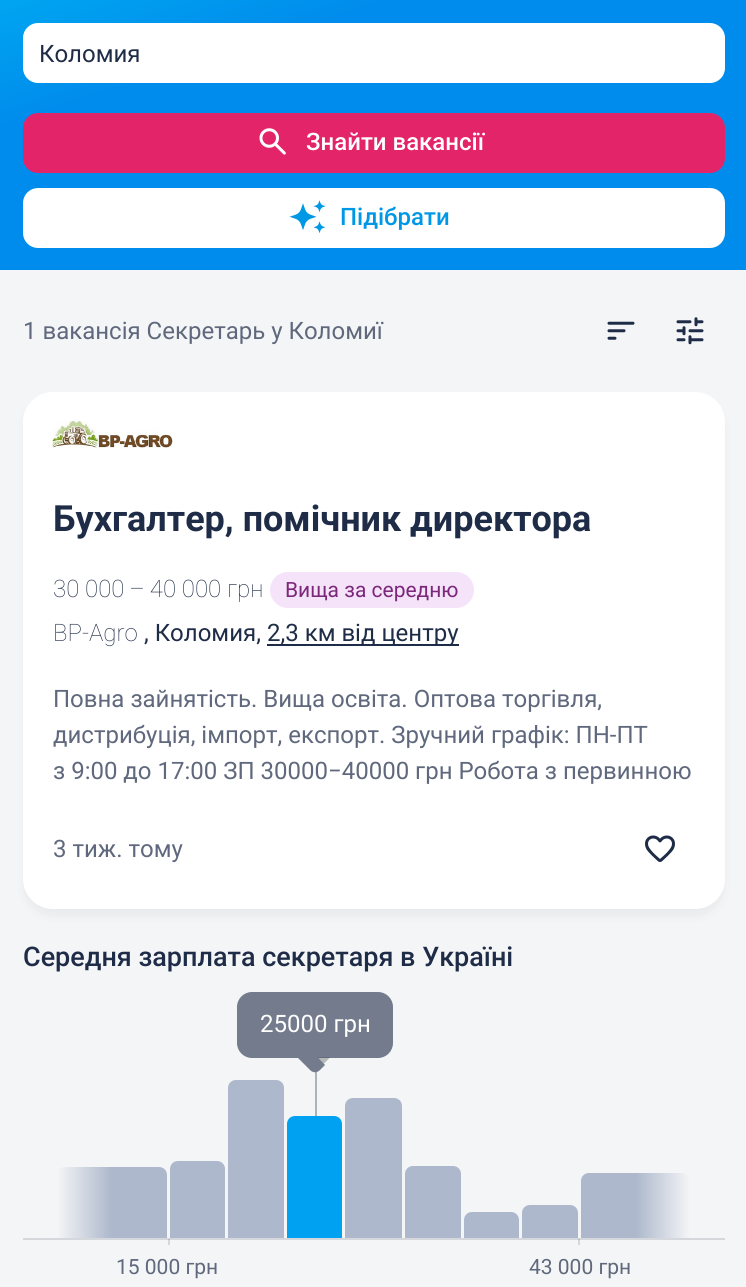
import math
import cairo


def use_color(cr, r, g, b):
  cr.set_source_rgb(r / 255, g / 255, b / 255)

def text(cr, x, y, s, family, size, color, bold=False, italic=False):
  cr.select_font_face(family, cairo.FONT_SLANT_ITALIC if italic else cairo.FONT_SLANT_NORMAL, cairo.FONT_WEIGHT_BOLD if bold else cairo.FONT_WEIGHT_NORMAL)
  cr.set_font_size(size)
  use_color(cr, *color)
  cr.move_to(x, y)
  cr.show_text(s)

def box(cr, x, y, w, h, *color):
  use_color(cr, *color)
  cr.rectangle(x, y, w, h)
  cr.fill()

def round_rect(cr, x, y, w, h, r):
  cr.new_sub_path()
  for i, (u, v) in enumerate([(x + w - r, y + h - r), (x + r, y + h - r), (x + r, y + r), (x + w - r, y + r)]):
    cr.arc(u, v, r, i * math.pi / 2, (i + 1) * math.pi / 2)
  cr.close_path()

def shadow(cr, x, y, w, h, r, blur, alpha):
  cr.push_group_with_content(cairo.CONTENT_ALPHA)
  cr.set_operator(cairo.OPERATOR_SOURCE)
  for i in range(15, -16, -2):
    e = blur * i / 6
    if min(w, h) + 2 * e > 0:
      cr.set_source_rgba(0, 0, 0, alpha * math.erfc((i - 1) / 8.5) / 2)
      round_rect(cr, x - e, y - e, w + 2 * e, h + 2 * e, max(0, min(r + e + blur * .6, min(w, h) / 2 + e)))
      cr.fill()
  cr.mask(cr.pop_group())

def picture(cr, path, x, y, w, h):
  cr.save()
  cr.set_source_surface(cairo.ImageSurface.create_from_png(path), x, y)
  cr.rectangle(x, y, w, h)
  cr.fill()
  cr.restore()

def draw(cr):
  use_color(cr, 255, 255, 255)
  cr.paint()
  gradient = cairo.LinearGradient(260, -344, 487, 354)
  gradient.add_color_stop_rgba(0.27, 0, 0.69, 0.953, 1)
  gradient.add_color_stop_rgba(0.5, 0, 0.549, 0.925, 1)
  cr.set_source(gradient)
  cr.rectangle(0, 0, 746, 270)
  cr.fill()
  use_color(cr, 255, 255, 255)
  round_rect(cr, 23, 23, 702, 60, 15)
  cr.fill()
  use_color(cr, 228, 36, 105)
  round_rect(cr, 24, 114, 700, 58, 14)
  cr.fill_preserve()
  cr.stroke()
  picture(cr, "img_01.png", 259, 128, 27, 27)
  use_color(cr, 255, 255, 255)
  round_rect(cr, 24, 189, 700, 58, 14)
  cr.fill_preserve()
  cr.stroke()
  picture(cr, "img_02.png", 289, 200, 37, 33)
  box(cr, 0, 270, 746, 1017, 244, 245, 246)
  box(cr, 578, 1239, 2, 6, 212, 215, 220)
  box(cr, 168, 1239, 2, 6, 212, 215, 220)
  picture(cr, "img_03.png", 607, 321, 28, 19)
  picture(cr, "img_04.png", 676, 317, 28, 28)
  use_color(cr, 31, 44, 71)
  shadow(cr, 23, 399, 702, 518, 30, 4, 0.05)
  use_color(cr, 255, 255, 255)
  round_rect(cr, 23, 392, 702, 517, 30)
  cr.fill()
  picture(cr, "img_05.png", 52, 421, 121, 28)
  use_color(cr, 245, 227, 249)
  round_rect(cr, 270, 572, 204, 36, 18)
  cr.fill()
  box(cr, 267, 644, 192, 2, 31, 44, 71)
  picture(cr, "img_06.png", 645, 835, 30, 27)
  use_color(cr, 115, 123, 140)
  round_rect(cr, 237, 992, 156, 66, 15)
  cr.fill()
  box(cr, 315, 1071, 2, 45, 171, 178, 186)
  cr.set_source_rgba(0, 0, 0, 0.25)
  cr.new_path()
  cr.move_to(300, 1057.5)
  cr.line_to(330, 1057.5)
  cr.line_to(315, 1072.5)
  cr.close_path()
  cr.fill()
  use_color(cr, 115, 123, 140)
  cr.new_path()
  cr.move_to(325, 1065)
  cr.line_to(320, 1070)
  cr.curve_to(317, 1073, 313, 1073, 310, 1070)
  cr.line_to(294.5, 1054.5)
  cr.line_to(315, 1054.5)
  cr.close_path()
  cr.fill()
  use_color(cr, 0, 161, 241)
  cr.new_path()
  cr.move_to(295, 1116)
  cr.line_to(334, 1116)
  cr.curve_to(338.5, 1116, 342, 1119.5, 342, 1124)
  cr.line_to(342, 1238)
  cr.line_to(287, 1238)
  cr.line_to(287, 1124)
  cr.curve_to(287, 1119.5, 290.5, 1116, 295, 1116)
  cr.close_path()
  cr.fill()
  use_color(cr, 173, 184, 204)
  cr.new_path()
  cr.move_to(178, 1161)
  cr.line_to(217, 1161)
  cr.curve_to(221.5, 1161, 225, 1164.5, 225, 1169)
  cr.line_to(225, 1238)
  cr.line_to(170, 1238)
  cr.line_to(170, 1169)
  cr.curve_to(170, 1164.5, 173.5, 1161, 178, 1161)
  cr.close_path()
  cr.fill()
  cr.new_path()
  cr.move_to(236, 1080)
  cr.line_to(276, 1080)
  cr.curve_to(280.5, 1080, 284, 1083.5, 284, 1088)
  cr.line_to(284, 1238)
  cr.line_to(228, 1238)
  cr.line_to(228, 1088)
  cr.curve_to(228, 1083.5, 231.5, 1080, 236, 1080)
  cr.close_path()
  cr.fill()
  cr.new_path()
  cr.move_to(353, 1098)
  cr.line_to(394, 1098)
  cr.curve_to(398.5, 1098, 402, 1101.5, 402, 1106)
  cr.line_to(402, 1238)
  cr.line_to(345, 1238)
  cr.line_to(345, 1106)
  cr.curve_to(345, 1101.5, 348.5, 1098, 353, 1098)
  cr.close_path()
  cr.fill()
  cr.new_path()
  cr.move_to(413, 1166)
  cr.line_to(453, 1166)
  cr.curve_to(457.5, 1166, 461, 1169.5, 461, 1174)
  cr.line_to(461, 1238)
  cr.line_to(405, 1238)
  cr.line_to(405, 1174)
  cr.curve_to(405, 1169.5, 408.5, 1166, 413, 1166)
  cr.close_path()
  cr.fill()
  cr.new_path()
  cr.move_to(472, 1212)
  cr.line_to(511, 1212)
  cr.curve_to(515.5, 1212, 519, 1215.5, 519, 1220)
  cr.line_to(519, 1238)
  cr.line_to(464, 1238)
  cr.line_to(464, 1220)
  cr.curve_to(464, 1215.5, 467.5, 1212, 472, 1212)
  cr.close_path()
  cr.fill()
  cr.new_path()
  cr.move_to(530, 1205)
  cr.line_to(570, 1205)
  cr.curve_to(574.5, 1205, 578, 1208.5, 578, 1213)
  cr.line_to(578, 1238)
  cr.line_to(522, 1238)
  cr.line_to(522, 1213)
  cr.curve_to(522, 1208.5, 525.5, 1205, 530, 1205)
  cr.close_path()
  cr.fill()
  box(cr, 23, 1238, 702, 2, 212, 215, 220)
  box(cr, 578, 1239, 2, 1, 185, 189, 198)
  box(cr, 168, 1239, 2, 1, 185, 189, 198)
  gradient = cairo.LinearGradient(57, 1202, 167, 1202)
  gradient.add_color_stop_rgba(0, 0.957, 0.961, 0.965, 1)
  gradient.add_color_stop_rgba(0.5, 0.678, 0.722, 0.8, 1)
  gradient.add_color_stop_rgba(1, 0.678, 0.722, 0.8, 1)
  cr.set_source(gradient)
  cr.new_path()
  cr.move_to(65, 1167)
  cr.line_to(159, 1167)
  cr.curve_to(163.5, 1167, 167, 1170.5, 167, 1175)
  cr.line_to(167, 1238)
  cr.line_to(57, 1238)
  cr.line_to(57, 1175)
  cr.curve_to(57, 1170.5, 60.5, 1167, 65, 1167)
  cr.close_path()
  cr.fill()
  gradient = cairo.LinearGradient(690, 1205, 581, 1205)
  gradient.add_color_stop_rgba(0, 0.957, 0.961, 0.965, 1)
  gradient.add_color_stop_rgba(0.5, 0.678, 0.722, 0.8, 1)
  gradient.add_color_stop_rgba(1, 0.678, 0.722, 0.8, 1)
  cr.set_source(gradient)
  cr.new_path()
  cr.move_to(589, 1173)
  cr.line_to(682, 1173)
  cr.curve_to(686.5, 1173, 690, 1176.5, 690, 1181)
  cr.line_to(690, 1238)
  cr.line_to(581, 1238)
  cr.line_to(581, 1181)
  cr.curve_to(581, 1176.5, 584.5, 1173, 589, 1173)
  cr.close_path()
  cr.fill()
  text(cr, 39, 62, "Коломия", "Roboto", 24, (31, 44, 71))
  text(cr, 306, 150, "Знайти вакансії", "Roboto Medium", 24, (255, 255, 255))
  text(cr, 340, 225, "Підібрати", "Roboto Medium", 24, (0, 152, 229))
  text(cr, 23, 339, "1 вакансія Секретарь у Коломиї", "Roboto", 24, (95, 104, 124))
  text(cr, 53, 531, "Бухгалтер, помічник директора", "Roboto", 36, (31, 44, 71), bold=True)
  text(cr, 53, 597, "30 000 – 40 000 грн", "Roboto Thin", 24, (31, 44, 71))
  text(cr, 285, 597, "Вища за середню", "Roboto", 21, (123, 39, 122))
  text(cr, 53, 641, "BP-Agro", "Roboto Thin", 24, (31, 44, 71))
  text(cr, 144, 641, ", Коломия,", "Roboto", 24, (31, 44, 71))
  text(cr, 267, 641, "2,3 км від центру", "Roboto", 24, (31, 44, 71))
  text(cr, 53, 707, "Повна зайнятість. Вища освіта. Оптова торгівля,", "Roboto", 24, (95, 104, 124))
  text(cr, 53, 743, "дистрибуція, імпорт, експорт. Зручний графік: ПН-ПТ", "Roboto", 24, (95, 104, 124))
  text(cr, 53, 779, "з 9:00 до 17:00 ЗП 30000−40000 грн Робота з первинною", "Roboto", 24, (95, 104, 124))
  text(cr, 53, 857, "3 тиж. тому", "Roboto", 24, (95, 104, 124))
  text(cr, 23, 966, "Середня зарплата секретаря в Україні", "Roboto Medium", 27, (31, 44, 71))
  text(cr, 260, 1032, "25000 грн", "Roboto", 24, (255, 255, 255))
  text(cr, 116, 1274, "15 000 грн", "Roboto", 21, (95, 104, 124))
  text(cr, 529, 1274, "43 000 грн", "Roboto", 21, (95, 104, 124))


surface = cairo.ImageSurface(cairo.FORMAT_RGB24, 746, 1287)
cr = cairo.Context(surface)
options = cairo.FontOptions()
options.set_hint_metrics(cairo.HINT_METRICS_OFF)
options.set_hint_style(cairo.HINT_STYLE_NONE)
cr.set_font_options(options)
cr.set_miter_limit(4)
draw(cr)
surface.write_to_png("out.png")
